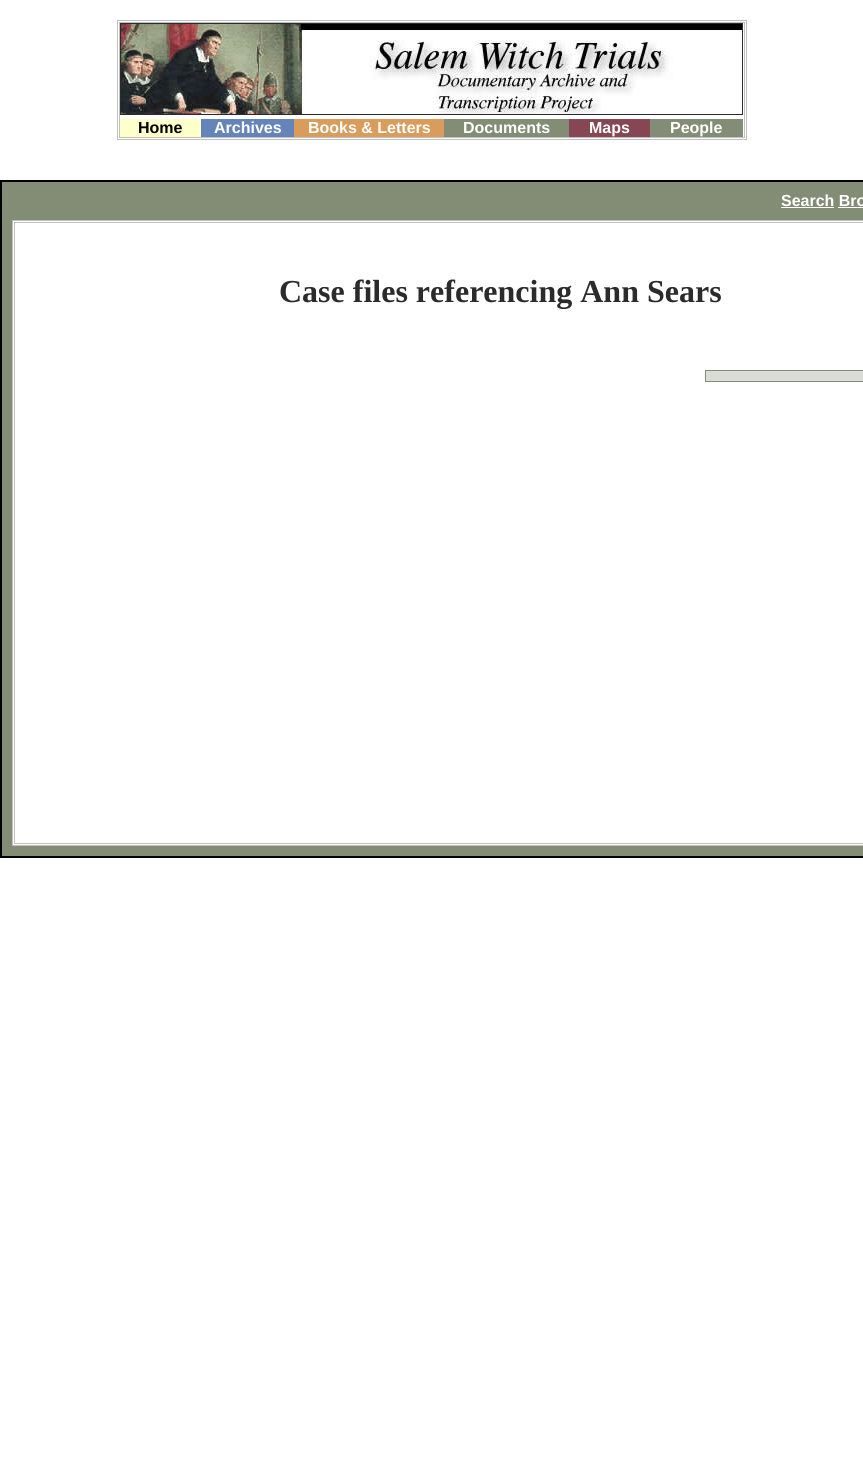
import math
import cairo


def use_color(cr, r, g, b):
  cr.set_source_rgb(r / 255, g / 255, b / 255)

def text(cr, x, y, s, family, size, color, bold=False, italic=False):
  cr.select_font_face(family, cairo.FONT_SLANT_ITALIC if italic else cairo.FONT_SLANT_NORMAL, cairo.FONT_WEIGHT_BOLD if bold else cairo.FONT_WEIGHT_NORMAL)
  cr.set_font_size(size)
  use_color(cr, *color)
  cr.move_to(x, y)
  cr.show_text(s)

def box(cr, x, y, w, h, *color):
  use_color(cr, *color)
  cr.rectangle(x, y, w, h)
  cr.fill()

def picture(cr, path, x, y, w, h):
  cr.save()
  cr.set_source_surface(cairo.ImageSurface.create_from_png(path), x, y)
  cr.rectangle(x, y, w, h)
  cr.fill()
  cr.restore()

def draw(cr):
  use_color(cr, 255, 255, 255)
  cr.paint()
  cr.rectangle(117.5, 20.5, 629, 119)
  use_color(cr, 192, 192, 192)
  cr.set_line_width(1)
  cr.stroke()
  cr.rectangle(119.5, 22.5, 625, 115)
  cr.stroke()
  cr.rectangle(120.5, 23.5, 622, 91)
  use_color(cr, 43, 43, 43)
  cr.stroke()
  picture(cr, "img_01.png", 121, 24, 621, 90)
  box(cr, 120, 119, 81, 18, 255, 255, 204)
  box(cr, 201, 119, 93, 18, 101, 132, 186)
  box(cr, 294, 119, 150, 18, 217, 156, 90)
  box(cr, 444, 119, 125, 18, 131, 141, 117)
  box(cr, 569, 119, 81, 18, 134, 70, 84)
  box(cr, 650, 119, 93, 18, 131, 141, 117)
  cr.rectangle(1, 181, 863, 676)
  cr.fill_preserve()
  use_color(cr, 0, 0, 0)
  cr.set_line_width(2)
  cr.stroke()
  box(cr, 781, 207, 53, 1, 255, 255, 255)
  box(cr, 838, 207, 25, 1, 255, 255, 255)
  cr.rectangle(12.5, 220.5, 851, 625)
  cr.fill_preserve()
  use_color(cr, 192, 192, 192)
  cr.set_line_width(1)
  cr.stroke()
  cr.rectangle(14.5, 222.5, 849, 621)
  cr.stroke()
  use_color(cr, 217, 220, 217)
  cr.rectangle(705.5, 370.5, 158, 11)
  cr.fill_preserve()
  use_color(cr, 131, 141, 117)
  cr.stroke()
  text(cr, 138, 133, "Home", "Liberation Sans", 16, (0, 0, 0), bold=True)
  text(cr, 214, 133, "Archives", "Liberation Sans", 16, (255, 255, 255), bold=True)
  text(cr, 308, 133, "Books & Letters", "Liberation Sans", 16, (255, 255, 255), bold=True)
  text(cr, 463, 133, "Documents", "Liberation Sans", 16, (255, 255, 255), bold=True)
  text(cr, 589, 133, "Maps", "Liberation Sans", 16, (255, 255, 255), bold=True)
  text(cr, 670, 133, "People", "Liberation Sans", 16, (255, 255, 255), bold=True)
  text(cr, 781, 206, "Search Bro", "Liberation Sans", 16, (255, 255, 255), bold=True)
  text(cr, 279, 302, "Case files referencing Ann Sears", "Liberation Serif", 32, (43, 43, 43), bold=True)


surface = cairo.ImageSurface(cairo.FORMAT_RGB24, 863, 1459)
cr = cairo.Context(surface)
options = cairo.FontOptions()
options.set_hint_metrics(cairo.HINT_METRICS_OFF)
options.set_hint_style(cairo.HINT_STYLE_NONE)
cr.set_font_options(options)
cr.set_miter_limit(4)
draw(cr)
surface.write_to_png("out.png")
